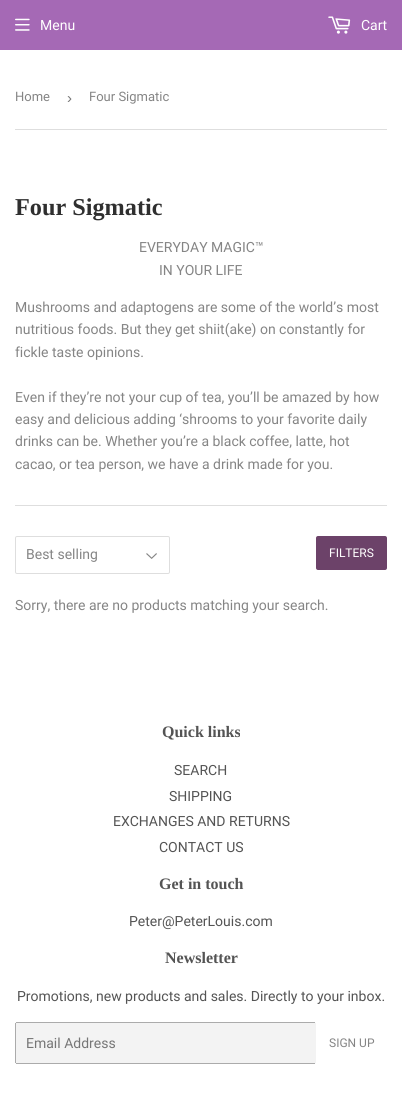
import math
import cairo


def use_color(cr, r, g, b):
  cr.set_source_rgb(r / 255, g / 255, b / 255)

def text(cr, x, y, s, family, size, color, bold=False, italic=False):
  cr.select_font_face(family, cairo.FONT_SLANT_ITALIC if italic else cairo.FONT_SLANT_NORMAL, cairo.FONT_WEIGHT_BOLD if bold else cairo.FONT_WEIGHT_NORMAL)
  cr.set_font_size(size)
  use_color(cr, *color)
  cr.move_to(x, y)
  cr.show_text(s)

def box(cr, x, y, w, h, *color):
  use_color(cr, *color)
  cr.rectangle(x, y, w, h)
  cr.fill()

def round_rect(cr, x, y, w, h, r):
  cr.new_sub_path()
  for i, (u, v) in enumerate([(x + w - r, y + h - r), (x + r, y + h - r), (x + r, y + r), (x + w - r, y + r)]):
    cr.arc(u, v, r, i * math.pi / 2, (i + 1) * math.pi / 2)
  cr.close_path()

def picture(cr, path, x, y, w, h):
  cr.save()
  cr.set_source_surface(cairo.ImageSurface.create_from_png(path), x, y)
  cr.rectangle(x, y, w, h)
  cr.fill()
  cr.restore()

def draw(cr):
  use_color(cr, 255, 255, 255)
  cr.paint()
  box(cr, 0, 0, 402, 50, 165, 105, 181)
  picture(cr, "img_01.png", 15, 18, 15, 13)
  picture(cr, "img_02.png", 328, 16, 23, 18)
  box(cr, 15, 129, 372, 1, 222, 222, 222)
  box(cr, 15, 505, 372, 1, 222, 222, 222)
  picture(cr, "img_03.png", 146, 553, 11, 6)
  round_rect(cr, 15.5, 536.5, 154, 37, 1.5)
  cr.set_line_width(1)
  cr.stroke()
  use_color(cr, 108, 66, 105)
  round_rect(cr, 316, 536, 71, 34, 2)
  cr.fill()
  use_color(cr, 243, 243, 243)
  round_rect(cr, 15, 1022, 301, 42, 2)
  cr.fill()
  box(cr, 16, 1022, 299, 1, 171, 171, 171)
  box(cr, 16, 1063, 299, 1, 171, 171, 171)
  box(cr, 15, 1023, 1, 40, 171, 171, 171)
  text(cr, 40, 30, "Menu", "Roboto", 14, (255, 255, 255))
  text(cr, 361, 30, "Cart", "Roboto", 14, (255, 255, 255))
  text(cr, 15, 101, "Home", "Roboto", 13, (133, 133, 133))
  text(cr, 67, 103, "›", "Liberation Sans", 15, (118, 118, 118))
  text(cr, 89, 101, "Four Sigmatic", "Roboto", 13, (133, 133, 133))
  text(cr, 15, 215, "Four Sigmatic", "Liberation Serif", 24.25, (47, 47, 47), bold=True)
  text(cr, 139, 252, "EVERYDAY MAGIC™", "Roboto", 14, (133, 133, 133))
  text(cr, 159, 275, "IN YOUR LIFE", "Roboto", 14, (133, 133, 133))
  text(cr, 15, 312, "Mushrooms and adaptogens are some of the world’s most", "Roboto", 14, (133, 133, 133))
  text(cr, 15, 334, "nutritious foods. But they get shiit(ake) on constantly for", "Roboto", 14, (133, 133, 133))
  text(cr, 15, 357, "fickle taste opinions.", "Roboto", 14, (133, 133, 133))
  text(cr, 15, 402, "Even if they’re not your cup of tea, you’ll be amazed by how", "Roboto", 14, (133, 133, 133))
  text(cr, 15, 424, "easy and delicious adding ‘shrooms to your favorite daily", "Roboto", 14, (133, 133, 133))
  text(cr, 15, 446, "drinks can be. Whether you’re a black coffee, latte, hot", "Roboto", 14, (133, 133, 133))
  text(cr, 15, 469, "cacao, or tea person, we have a drink made for you.", "Roboto", 14, (133, 133, 133))
  text(cr, 26, 559, "Best selling", "Roboto", 14, (133, 133, 133))
  text(cr, 329, 557, "FILTERS", "Roboto", 12, (255, 255, 255))
  text(cr, 15, 610, "Sorry, there are no products matching your search.", "Roboto", 14, (133, 133, 133))
  text(cr, 162, 737, "Quick links", "Liberation Serif", 16, (84, 84, 84), bold=True)
  text(cr, 174, 775, "SEARCH", "Roboto", 14, (84, 84, 84))
  text(cr, 169, 801, "SHIPPING", "Roboto", 14, (84, 84, 84))
  text(cr, 113, 826, "EXCHANGES AND RETURNS", "Roboto", 14, (84, 84, 84))
  text(cr, 159, 852, "CONTACT US", "Roboto", 14, (84, 84, 84))
  text(cr, 159, 889, "Get in touch", "Liberation Serif", 16, (84, 84, 84), bold=True)
  text(cr, 129, 926, "Peter@PeterLouis.com", "Roboto", 14, (84, 84, 84))
  text(cr, 165, 963, "Newsletter", "Liberation Serif", 16, (84, 84, 84), bold=True)
  text(cr, 17, 1001, "Promotions, new products and sales. Directly to your inbox.", "Roboto", 14, (84, 84, 84))
  text(cr, 26, 1048, "Email Address", "Roboto", 14, (118, 118, 118))
  text(cr, 329, 1047, "SIGN UP", "Roboto", 12, (133, 133, 133))


surface = cairo.ImageSurface(cairo.FORMAT_RGB24, 402, 1109)
cr = cairo.Context(surface)
options = cairo.FontOptions()
options.set_hint_metrics(cairo.HINT_METRICS_OFF)
options.set_hint_style(cairo.HINT_STYLE_NONE)
cr.set_font_options(options)
cr.set_miter_limit(4)
draw(cr)
surface.write_to_png("out.png")
